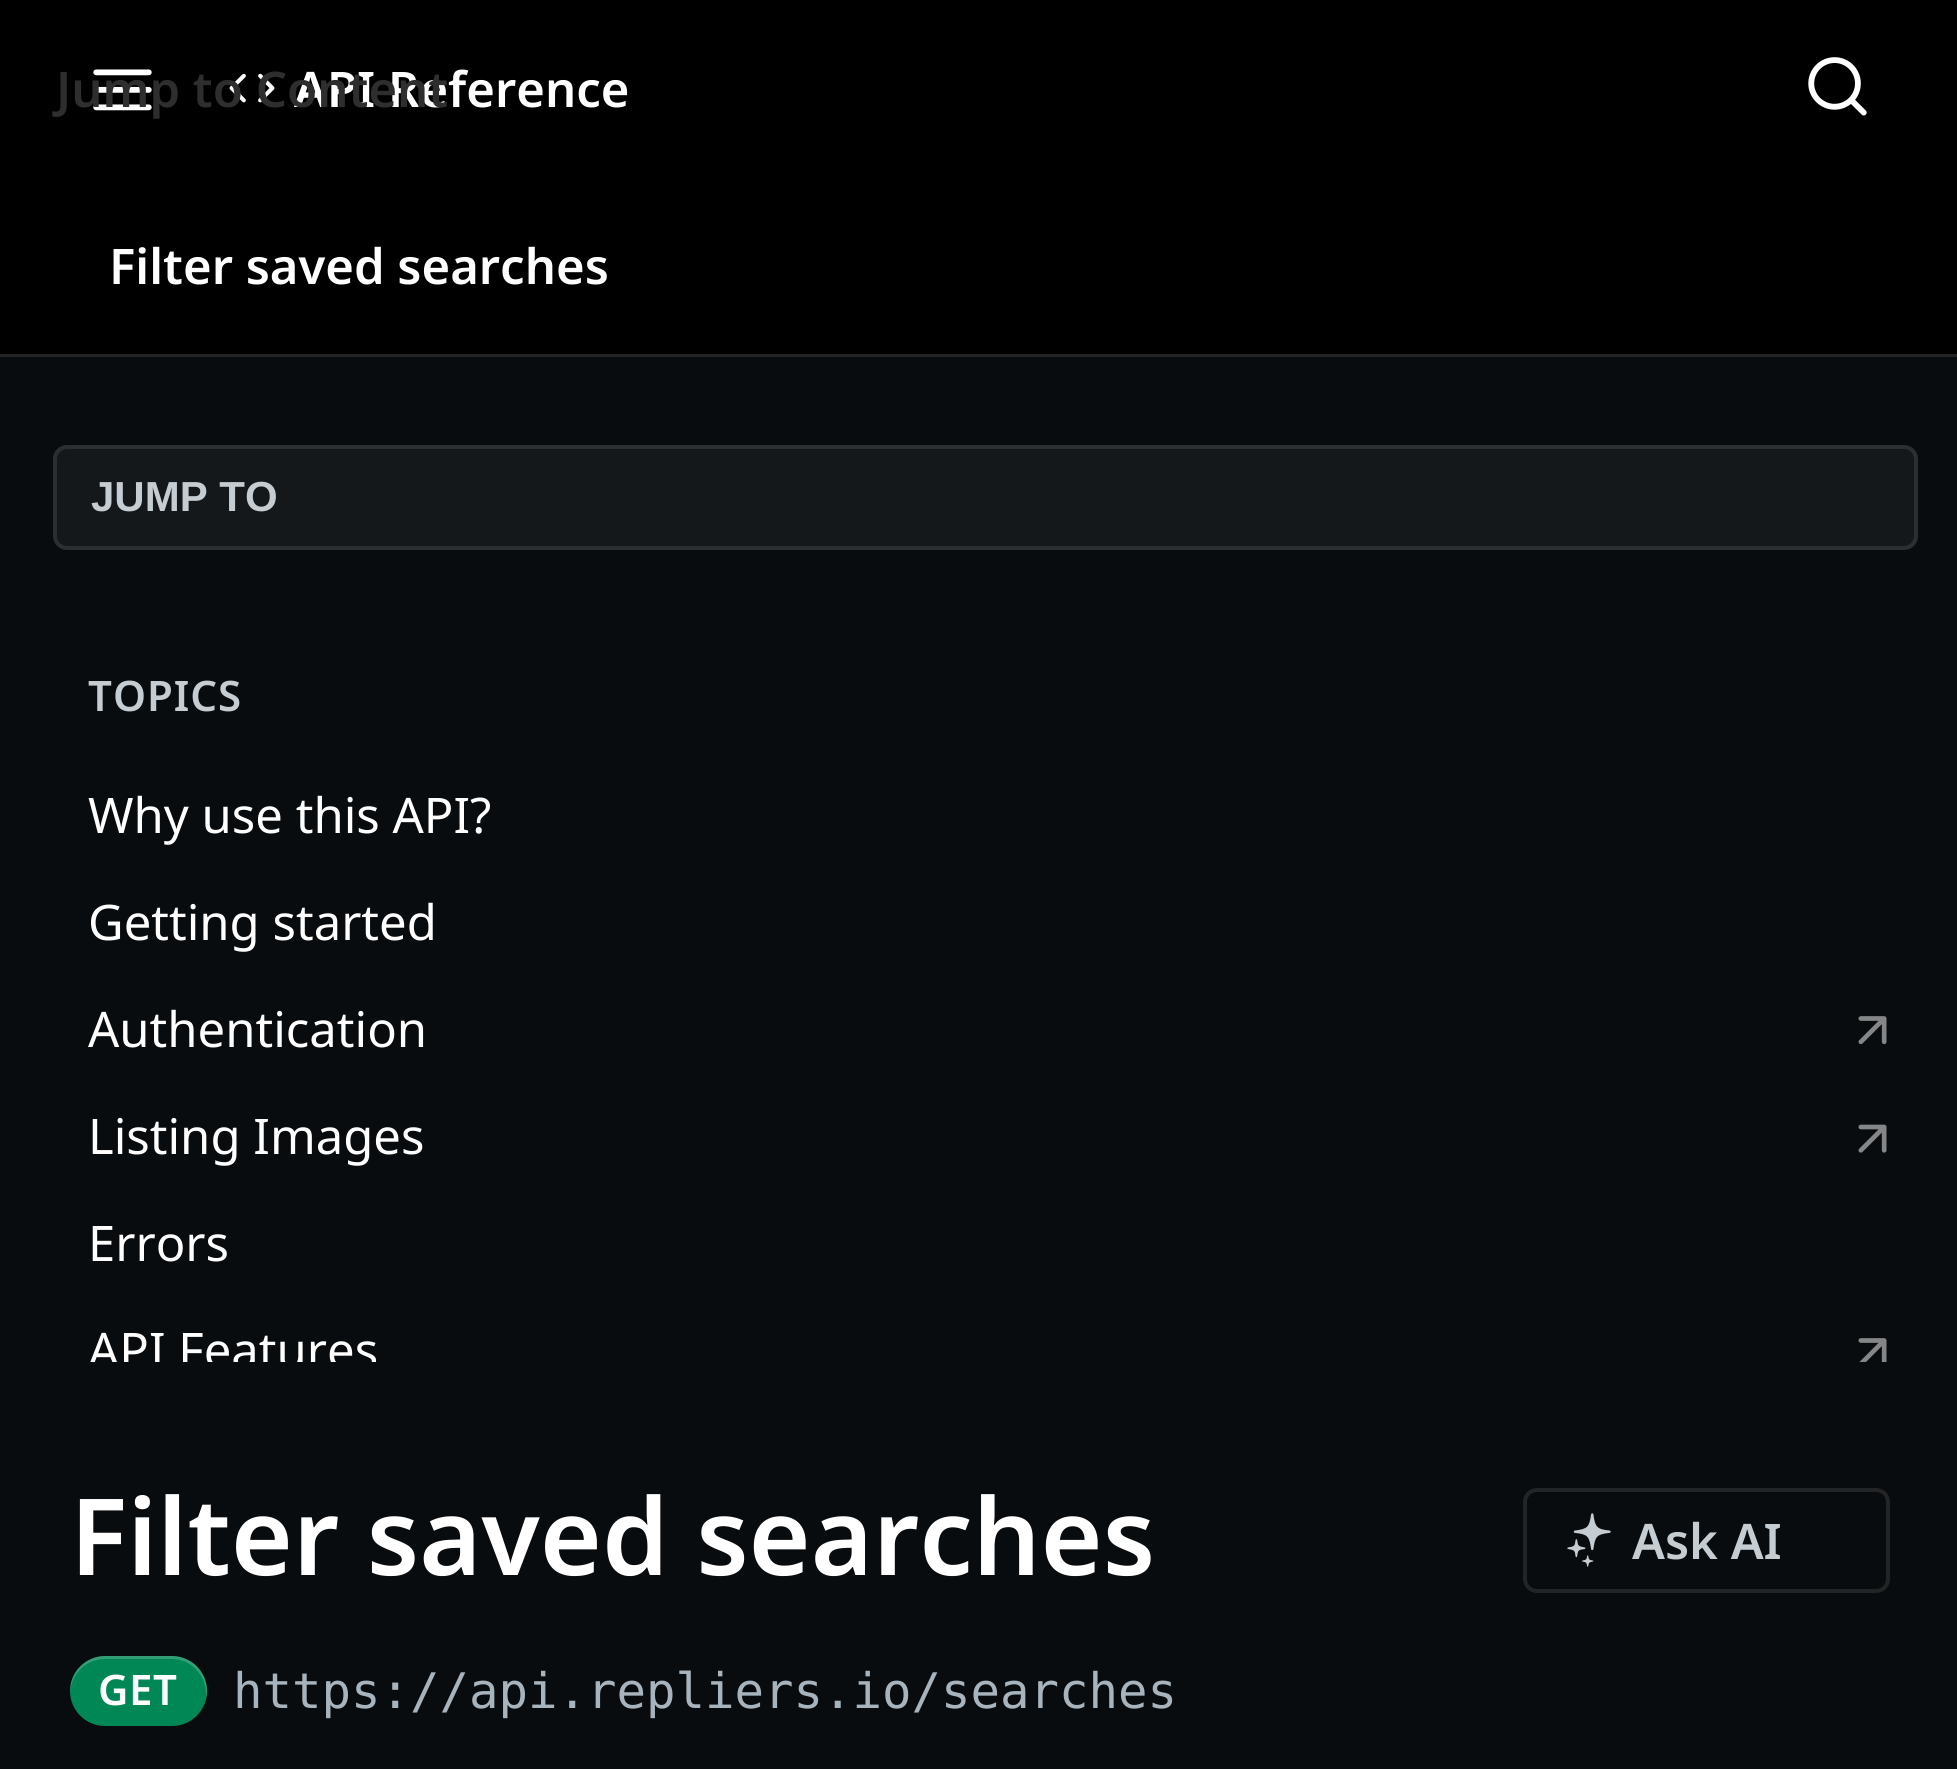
import math
import cairo


def use_color(cr, r, g, b):
  cr.set_source_rgb(r / 255, g / 255, b / 255)

def text(cr, x, y, s, family, size, color, bold=False, italic=False):
  cr.select_font_face(family, cairo.FONT_SLANT_ITALIC if italic else cairo.FONT_SLANT_NORMAL, cairo.FONT_WEIGHT_BOLD if bold else cairo.FONT_WEIGHT_NORMAL)
  cr.set_font_size(size)
  use_color(cr, *color)
  cr.move_to(x, y)
  cr.show_text(s)

def spaced_text(cr, x, y, s, letter, word):
  cr.move_to(x, y)
  for ch in s:
    cr.show_text(ch)
    cr.rel_move_to(letter + word * (ch == ' '), 0)

def box(cr, x, y, w, h, *color):
  use_color(cr, *color)
  cr.rectangle(x, y, w, h)
  cr.fill()

def round_rect(cr, x, y, w, h, r):
  cr.new_sub_path()
  for i, (u, v) in enumerate([(x + w - r, y + h - r), (x + r, y + h - r), (x + r, y + r), (x + w - r, y + r)]):
    cr.arc(u, v, r, i * math.pi / 2, (i + 1) * math.pi / 2)
  cr.close_path()

def picture(cr, path, x, y, w, h):
  cr.save()
  cr.set_source_surface(cairo.ImageSurface.create_from_png(path), x, y)
  cr.rectangle(x, y, w, h)
  cr.fill()
  cr.restore()

def draw(cr):
  use_color(cr, 9, 12, 14)
  cr.paint()
  box(cr, 0, 354, 1957, 3, 34, 36, 38)
  box(cr, 0, 0, 1957, 354, 0, 0, 0)
  picture(cr, "img_01.png", 93, 69, 59, 42)
  picture(cr, "img_02.png", 229, 73, 46, 30)
  picture(cr, "img_03.png", 1808, 57, 59, 59)
  use_color(cr, 21, 24, 26)
  round_rect(cr, 53, 445, 1865, 105, 14)
  cr.fill()
  round_rect(cr, 55, 447, 1861, 101, 12)
  cr.set_source_rgba(1, 1, 1, 0.1)
  cr.set_line_width(4)
  cr.stroke()
  picture(cr, "img_04.png", 1858, 1016, 29, 29)
  picture(cr, "img_05.png", 1858, 1124, 29, 29)
  picture(cr, "img_06.png", 1858, 1338, 29, 24)
  round_rect(cr, 1525, 1490, 363, 101, 12)
  use_color(cr, 34, 36, 38)
  cr.stroke()
  picture(cr, "img_07.png", 1567, 1513, 44, 54)
  use_color(cr, 0, 135, 86)
  round_rect(cr, 70, 1656, 137, 70, 35)
  cr.fill()
  cr.set_source_rgba(1, 1, 1, 0.2)
  cr.new_path()
  cr.move_to(105, 1659)
  cr.line_to(172, 1659)
  cr.curve_to(191, 1659, 206, 1675, 206, 1694)
  cr.curve_to(206, 1697, 206, 1700, 205, 1703)
  cr.curve_to(206, 1700, 207, 1695, 207, 1691)
  cr.curve_to(207, 1672, 191, 1656, 172, 1656)
  cr.line_to(105, 1656)
  cr.curve_to(86, 1656, 70, 1672, 70, 1691)
  cr.line_to(70, 1693)
  cr.curve_to(71, 1674, 86, 1659, 105, 1659)
  cr.close_path()
  cr.fill()
  text(cr, 294, 107, "API Reference", "Noto Sans SemiBold", 49, (255, 255, 255))
  text(cr, 56, 107, "Jump to Content", "Noto Sans SemiBold", 49, (46, 46, 46))
  text(cr, 109, 284, "Filter saved searches", "Noto Sans SemiBold", 49, (255, 255, 255))
  text(cr, 91, 511, "JUMP TO", "Liberation Sans", 42, (197, 205, 211), bold=True)
  cr.select_font_face("Noto Sans SemiBold")
  spaced_text(cr, 88, 711, "TOPICS", 1, 0)
  text(cr, 88, 833, "Why use this API?", "Noto Sans", 49, (255, 255, 255))
  text(cr, 88, 940, "Getting started", "Noto Sans", 49, (255, 255, 255))
  text(cr, 88, 1047, "Authentication", "Noto Sans", 49, (255, 255, 255))
  text(cr, 88, 1154, "Listing Images", "Noto Sans", 49, (255, 255, 255))
  text(cr, 88, 1261, "Errors", "Noto Sans", 49, (255, 255, 255))
  cr.save()
  cr.rectangle(0, 354, 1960, 1008)
  cr.clip()
  text(cr, 88, 1368, "API Features", "Noto Sans", 49, (255, 255, 255))
  cr.restore()
  text(cr, 70, 1575, "Filter saved searches", "Noto Sans SemiBold", 106.4, (255, 255, 255))
  text(cr, 1632, 1559, "Ask AI", "Noto Sans SemiBold", 49, (197, 205, 211))
  cr.set_font_size(42)
  use_color(cr, 255, 255, 255)
  spaced_text(cr, 98, 1705, "GET", 0.5, 0)
  text(cr, 233, 1708, "https://api.repliers.io/searches", "DejaVu Sans Mono", 49, (168, 180, 189))


surface = cairo.ImageSurface(cairo.FORMAT_RGB24, 1957, 1769)
cr = cairo.Context(surface)
options = cairo.FontOptions()
options.set_hint_metrics(cairo.HINT_METRICS_OFF)
options.set_hint_style(cairo.HINT_STYLE_NONE)
cr.set_font_options(options)
cr.set_miter_limit(4)
draw(cr)
surface.write_to_png("out.png")
